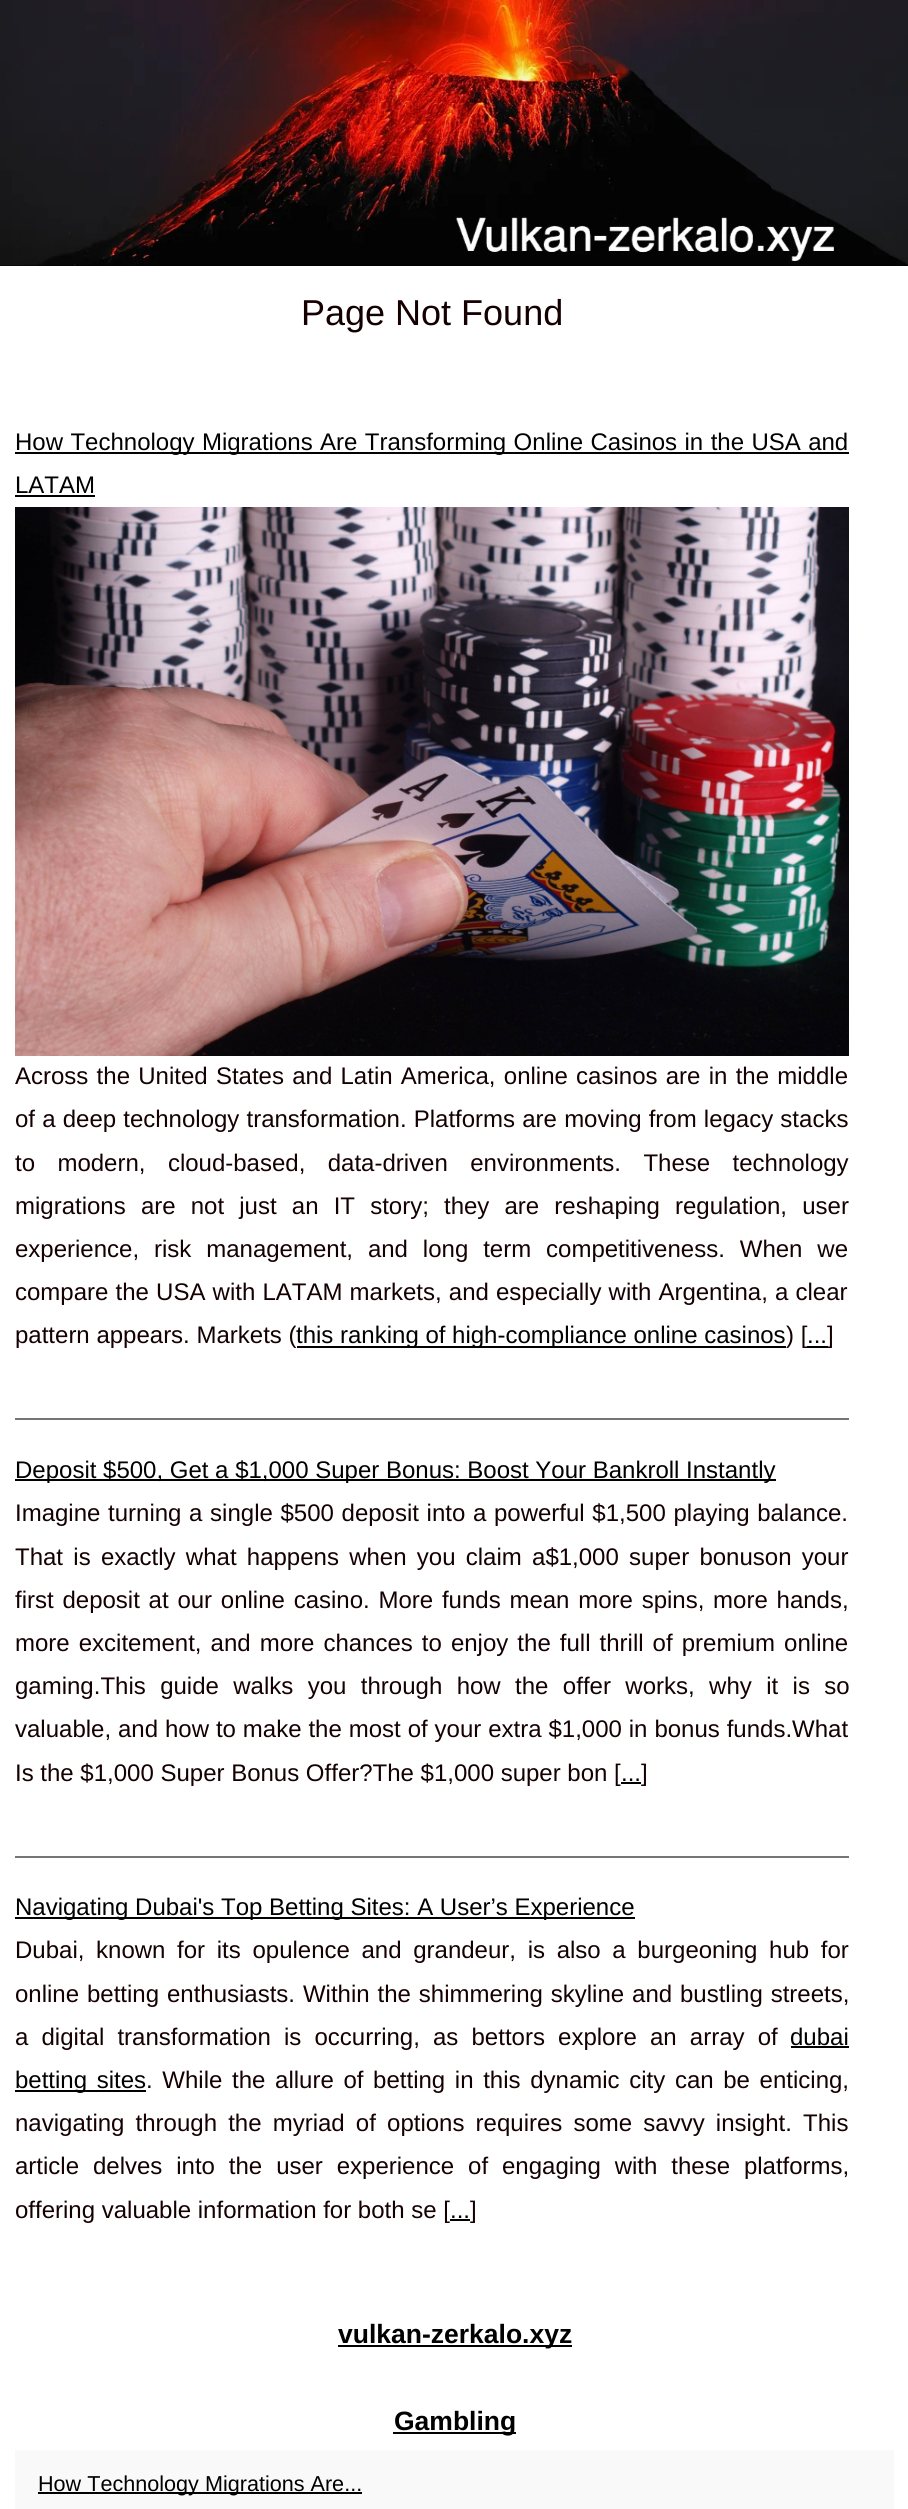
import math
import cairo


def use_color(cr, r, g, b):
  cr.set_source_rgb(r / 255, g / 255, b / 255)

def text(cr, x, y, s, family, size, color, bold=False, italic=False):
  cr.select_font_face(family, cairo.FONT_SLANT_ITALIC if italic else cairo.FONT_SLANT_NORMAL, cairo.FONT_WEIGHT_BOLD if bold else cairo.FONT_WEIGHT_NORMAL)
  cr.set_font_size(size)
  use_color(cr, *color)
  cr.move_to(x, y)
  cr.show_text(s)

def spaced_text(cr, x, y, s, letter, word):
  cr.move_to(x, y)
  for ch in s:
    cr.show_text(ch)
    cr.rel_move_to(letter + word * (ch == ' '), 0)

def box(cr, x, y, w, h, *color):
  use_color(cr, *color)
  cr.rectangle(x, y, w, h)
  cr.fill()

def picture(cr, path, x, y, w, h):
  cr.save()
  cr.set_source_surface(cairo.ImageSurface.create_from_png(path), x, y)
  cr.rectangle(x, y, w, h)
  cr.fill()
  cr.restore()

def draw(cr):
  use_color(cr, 0, 0, 0)
  cr.paint()
  picture(cr, "img_01.png", 0, 0, 908, 266)
  box(cr, 0, 266, 908, 2243, 255, 255, 255)
  box(cr, 15, 452, 834, 2, 0, 0, 0)
  box(cr, 15, 495, 80, 2, 0, 0, 0)
  picture(cr, "img_02.png", 15, 507, 834, 549)
  box(cr, 297, 1346, 489, 2, 0, 0, 0)
  box(cr, 15, 1418, 834, 2, 117, 117, 117)
  box(cr, 15, 1479, 761, 2, 0, 0, 0)
  box(cr, 621, 1782, 20, 2, 0, 0, 0)
  box(cr, 15, 1856, 834, 2, 117, 117, 117)
  box(cr, 15, 1917, 620, 2, 0, 0, 0)
  box(cr, 791, 2046, 58, 2, 0, 0, 0)
  box(cr, 15, 2090, 131, 2, 0, 0, 0)
  box(cr, 450, 2219, 20, 2, 0, 0, 0)
  box(cr, 338, 2345, 234, 2, 0, 0, 0)
  box(cr, 393, 2432, 123, 2, 0, 0, 0)
  box(cr, 15, 2450, 879, 59, 249, 249, 249)
  box(cr, 38, 2492, 324, 2, 0, 0, 0)
  text(cr, 301, 325, "Page Not Found", "Liberation Sans", 36, (20, 0, 1))
  cr.set_font_size(24)
  use_color(cr, 0, 0, 0)
  spaced_text(cr, 15, 450, "How Technology Migrations Are Transforming Online Casinos in the USA and", 0, 0.75)
  text(cr, 15, 493, "LATAM", "Liberation Sans", 24, (0, 0, 0))
  use_color(cr, 20, 0, 1)
  spaced_text(cr, 15, 1084, "Across the United States and Latin America, online casinos are in the middle", 0, 1.6)
  spaced_text(cr, 15, 1127, "of a deep technology transformation. Platforms are moving from legacy stacks", 0, 0.5)
  spaced_text(cr, 15, 1171, "to modern, cloud-based, data-driven environments. These technology", 0, 15.75)
  spaced_text(cr, 15, 1214, "migrations are not just an IT story; they are reshaping regulation, user", 0, 8.5)
  spaced_text(cr, 15, 1257, "experience, risk management, and long term competitiveness. When we", 0, 8.25)
  spaced_text(cr, 15, 1300, "compare the USA with LATAM markets, and especially with Argentina, a clear", 0, 0.5)
  text(cr, 15, 1343, "pattern appears. Markets (", "Liberation Sans", 24, (20, 0, 1))
  text(cr, 296, 1343, "this ranking of high-compliance online casinos", "Liberation Sans", 24, (0, 0, 0))
  text(cr, 786, 1343, ") [", "Liberation Sans", 24, (20, 0, 1))
  text(cr, 807, 1343, "...", "Liberation Sans", 24, (0, 0, 0))
  box(cr, 807, 1346, 21, 2, 0, 0, 0)
  text(cr, 827, 1343, "]", "Liberation Sans", 24, (20, 0, 1))
  text(cr, 15, 1478, "Deposit $500, Get a $1,000 Super Bonus: Boost Your Bankroll Instantly", "Liberation Sans", 24, (0, 0, 0))
  use_color(cr, 20, 0, 1)
  spaced_text(cr, 15, 1521, "Imagine turning a single $500 deposit into a powerful $1,500 playing balance.", 0, 1)
  spaced_text(cr, 15, 1565, "That is exactly what happens when you claim a$1,000 super bonuson your", 0, 3.6)
  spaced_text(cr, 15, 1608, "first deposit at our online casino. More funds mean more spins, more hands,", 0, 2.1)
  spaced_text(cr, 15, 1651, "more excitement, and more chances to enjoy the full thrill of premium online", 0, 2.4)
  spaced_text(cr, 15, 1694, "gaming.This guide walks you through how the offer works, why it is so", 0, 7.75)
  spaced_text(cr, 15, 1737, "valuable, and how to make the most of your extra $1,000 in bonus funds.What", 0, 0.25)
  text(cr, 15, 1781, "Is the $1,000 Super Bonus Offer?The $1,000 super bon [", "Liberation Sans", 24, (20, 0, 1))
  text(cr, 621, 1781, "...", "Liberation Sans", 24, (0, 0, 0))
  text(cr, 641, 1781, "]", "Liberation Sans", 24, (20, 0, 1))
  text(cr, 15, 1915, "Navigating Dubai's Top Betting Sites: A User’s Experience", "Liberation Sans", 24, (0, 0, 0))
  use_color(cr, 20, 0, 1)
  spaced_text(cr, 15, 1958, "Dubai, known for its opulence and grandeur, is also a burgeoning hub for", 0, 5)
  spaced_text(cr, 15, 2002, "online betting enthusiasts. Within the shimmering skyline and bustling streets,", 0, 1.25)
  spaced_text(cr, 15, 2045, "a digital transformation is occurring, as bettors explore an array of", 0, 6.5)
  text(cr, 790, 2045, "dubai", "Liberation Sans", 24, (0, 0, 0))
  spaced_text(cr, 15, 2088, "betting sites", 0, 3)
  use_color(cr, 20, 0, 1)
  spaced_text(cr, 146, 2088, ". While the allure of betting in this dynamic city can be enticing,", 0, 3)
  spaced_text(cr, 15, 2131, "navigating through the myriad of options requires some savvy insight. This", 0, 4.5)
  spaced_text(cr, 15, 2174, "article delves into the user experience of engaging with these platforms,", 0, 7.25)
  text(cr, 15, 2218, "offering valuable information for both se [", "Liberation Sans", 24, (20, 0, 1))
  text(cr, 450, 2218, "...", "Liberation Sans", 24, (0, 0, 0))
  text(cr, 470, 2218, "]", "Liberation Sans", 24, (20, 0, 1))
  text(cr, 338, 2343, "vulkan-zerkalo.xyz", "Liberation Sans", 26.5, (0, 0, 0), bold=True)
  text(cr, 394, 2430, "Gambling", "Liberation Sans", 26.5, (0, 0, 0), bold=True)
  text(cr, 38, 2491, "How Technology Migrations Are...", "Liberation Sans", 21.6, (0, 0, 0))


surface = cairo.ImageSurface(cairo.FORMAT_RGB24, 908, 2509)
cr = cairo.Context(surface)
options = cairo.FontOptions()
options.set_hint_metrics(cairo.HINT_METRICS_OFF)
options.set_hint_style(cairo.HINT_STYLE_NONE)
cr.set_font_options(options)
cr.set_miter_limit(4)
draw(cr)
surface.write_to_png("out.png")
